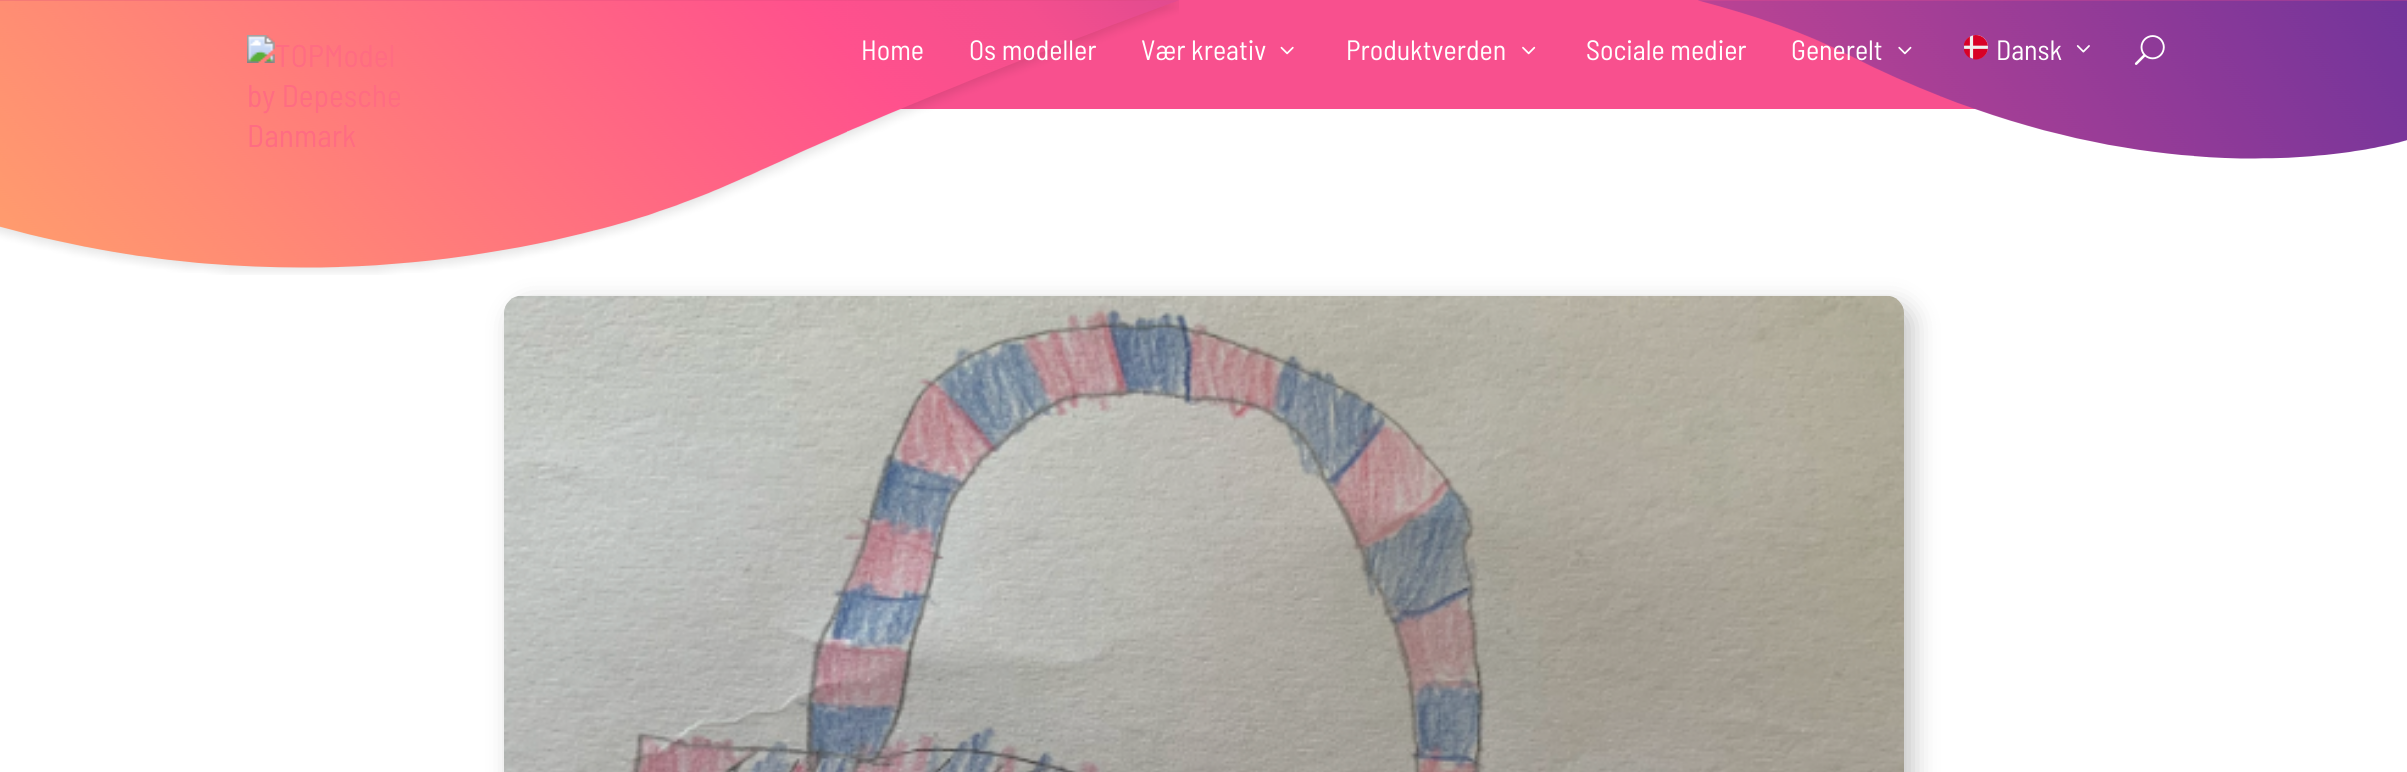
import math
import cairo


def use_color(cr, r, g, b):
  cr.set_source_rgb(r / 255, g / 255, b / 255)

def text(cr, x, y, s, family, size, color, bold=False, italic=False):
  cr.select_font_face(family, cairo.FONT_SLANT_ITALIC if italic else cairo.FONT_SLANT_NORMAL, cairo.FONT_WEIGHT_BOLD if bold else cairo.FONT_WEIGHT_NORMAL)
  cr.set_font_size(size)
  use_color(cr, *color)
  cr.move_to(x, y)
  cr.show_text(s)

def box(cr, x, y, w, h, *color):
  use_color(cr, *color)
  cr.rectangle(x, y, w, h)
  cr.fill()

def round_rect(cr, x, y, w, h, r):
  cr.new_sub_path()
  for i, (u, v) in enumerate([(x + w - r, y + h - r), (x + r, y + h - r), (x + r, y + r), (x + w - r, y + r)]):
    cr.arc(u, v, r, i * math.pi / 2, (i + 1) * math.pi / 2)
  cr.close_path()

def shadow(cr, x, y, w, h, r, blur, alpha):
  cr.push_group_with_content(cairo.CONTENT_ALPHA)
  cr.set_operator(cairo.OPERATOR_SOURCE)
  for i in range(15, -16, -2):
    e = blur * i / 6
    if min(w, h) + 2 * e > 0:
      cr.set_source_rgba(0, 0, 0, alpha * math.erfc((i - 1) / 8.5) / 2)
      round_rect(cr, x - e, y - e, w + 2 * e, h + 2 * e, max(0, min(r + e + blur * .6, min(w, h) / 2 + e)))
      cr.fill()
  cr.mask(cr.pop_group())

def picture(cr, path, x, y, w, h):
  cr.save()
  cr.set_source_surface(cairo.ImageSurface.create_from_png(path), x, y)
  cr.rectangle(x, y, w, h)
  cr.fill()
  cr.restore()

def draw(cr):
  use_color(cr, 255, 255, 255)
  cr.paint()
  box(cr, 0, 0, 2407, 109, 248, 80, 142)
  use_color(cr, 0, 0, 0)
  shadow(cr, 513, 305, 1400, 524, 18, 13, 0.23)
  picture(cr, "img_01.png", 0, 0, 1179, 275)
  picture(cr, "img_02.png", 1698, 0, 709, 159)
  picture(cr, "img_03.png", 247, 35, 153, 113)
  picture(cr, "img_04.png", 1280, 46, 14, 9)
  picture(cr, "img_05.png", 1522, 46, 14, 9)
  picture(cr, "img_06.png", 1898, 46, 14, 9)
  picture(cr, "img_07.png", 1964, 35, 24, 25)
  picture(cr, "img_08.png", 2076, 45, 14, 8)
  picture(cr, "img_09.png", 2134, 35, 31, 30)
  picture(cr, "img_10.png", 504, 295, 1400, 477)
  text(cr, 861, 60, "Home", "Barlow Semi Condensed", 28, (255, 255, 255))
  text(cr, 969, 60, "Os modeller", "Barlow Semi Condensed", 28, (255, 255, 255))
  text(cr, 1141, 60, "Vær kreativ", "Barlow Semi Condensed", 28, (255, 255, 255))
  text(cr, 1346, 60, "Produktverden", "Barlow Semi Condensed", 28, (255, 255, 255))
  text(cr, 1586, 60, "Sociale medier", "Barlow Semi Condensed", 28, (255, 255, 255))
  text(cr, 1791, 60, "Generelt", "Barlow Semi Condensed", 28, (255, 255, 255))
  text(cr, 1996, 60, "Dansk", "Barlow Semi Condensed", 28, (255, 255, 255))


surface = cairo.ImageSurface(cairo.FORMAT_RGB24, 2407, 772)
cr = cairo.Context(surface)
options = cairo.FontOptions()
options.set_hint_metrics(cairo.HINT_METRICS_OFF)
options.set_hint_style(cairo.HINT_STYLE_NONE)
cr.set_font_options(options)
cr.set_miter_limit(4)
draw(cr)
surface.write_to_png("out.png")
